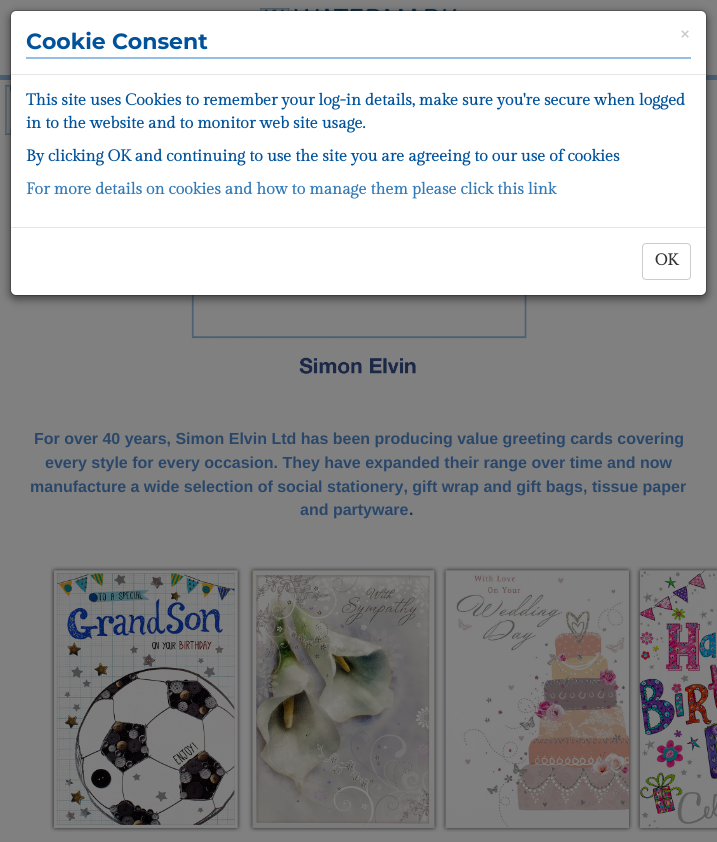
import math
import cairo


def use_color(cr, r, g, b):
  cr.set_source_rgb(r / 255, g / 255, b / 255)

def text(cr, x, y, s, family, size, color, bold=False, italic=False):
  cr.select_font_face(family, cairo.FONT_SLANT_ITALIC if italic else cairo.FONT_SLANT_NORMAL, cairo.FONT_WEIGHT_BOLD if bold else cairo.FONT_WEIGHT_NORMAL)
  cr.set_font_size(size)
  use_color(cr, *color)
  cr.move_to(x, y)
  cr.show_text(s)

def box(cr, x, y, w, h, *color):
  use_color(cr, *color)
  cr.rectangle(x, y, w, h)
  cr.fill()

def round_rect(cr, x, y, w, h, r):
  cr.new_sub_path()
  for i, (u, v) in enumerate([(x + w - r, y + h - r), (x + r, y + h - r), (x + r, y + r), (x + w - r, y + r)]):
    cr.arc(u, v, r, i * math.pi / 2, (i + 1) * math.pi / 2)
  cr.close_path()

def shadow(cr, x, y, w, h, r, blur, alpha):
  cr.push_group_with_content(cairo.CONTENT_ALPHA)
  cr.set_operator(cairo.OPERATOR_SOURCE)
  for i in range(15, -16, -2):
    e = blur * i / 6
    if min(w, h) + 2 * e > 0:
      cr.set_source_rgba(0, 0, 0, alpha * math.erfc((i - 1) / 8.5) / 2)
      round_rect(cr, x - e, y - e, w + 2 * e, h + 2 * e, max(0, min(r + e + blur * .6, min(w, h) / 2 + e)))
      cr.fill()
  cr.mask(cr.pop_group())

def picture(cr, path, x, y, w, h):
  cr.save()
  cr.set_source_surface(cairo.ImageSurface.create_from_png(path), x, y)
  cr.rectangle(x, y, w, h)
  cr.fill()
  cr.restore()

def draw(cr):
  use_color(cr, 128, 128, 128)
  cr.paint()
  picture(cr, "img_01.png", 260, 8, 197, 3)
  picture(cr, "img_02.png", 191, 295, 336, 79)
  box(cr, 0, 75, 717, 5, 75, 95, 115)
  picture(cr, "img_04.png", 5, 85, 6, 50)
  use_color(cr, 0, 0, 0)
  shadow(cr, 10, 13, 697, 286, 6, 4.5, 0.5)
  use_color(cr, 255, 255, 255)
  round_rect(cr, 11, 11, 695, 284, 5)
  cr.fill()
  round_rect(cr, 10.5, 10.5, 696, 285, 5.5)
  cr.set_source_rgba(0, 0, 0, 0.2)
  cr.set_line_width(1)
  cr.stroke()
  box(cr, 11, 74, 695, 1, 229, 229, 229)
  box(cr, 26, 57, 665, 2, 149, 190, 229)
  box(cr, 11, 227, 695, 1, 229, 229, 229)
  round_rect(cr, 642.5, 243.5, 48, 36, 3.5)
  use_color(cr, 204, 204, 204)
  cr.stroke()
  picture(cr, "img_03.png", 50, 566, 667, 266)
  text(cr, 26, 49, "Cookie Consent", "Montserrat", 22, (0, 82, 155), bold=True)
  text(cr, 679, 41, "×", "Gilda Display", 21, (204, 204, 204), bold=True)
  text(cr, 26, 105, "This site uses Cookies to remember your log-in details, make sure you're secure when logged", "Gilda Display", 16, (0, 82, 155), bold=True)
  text(cr, 26, 128, "in to the website and to monitor web site usage.", "Gilda Display", 16, (0, 82, 155), bold=True)
  text(cr, 26, 161, "By clicking OK and continuing to use the site you are agreeing to our use of cookies", "Gilda Display", 16, (0, 82, 155), bold=True)
  text(cr, 26, 194, "For more details on cookies and how to manage them please click this link", "Gilda Display", 16, (51, 122, 183), bold=True)
  text(cr, 655, 265, "OK", "Gilda Display", 16, (51, 51, 51), bold=True)
  text(cr, 34, 444, "For over 40 years, Simon Elvin Ltd has been producing value greeting cards covering", "Liberation Sans", 16, (42, 71, 106), bold=True)
  text(cr, 45, 468, "every style for every occasion. They have expanded their range over time and now", "Liberation Sans", 16, (42, 71, 106), bold=True)
  text(cr, 30, 492, "manufacture a wide selection of social stationery, gift wrap and gift bags, tissue paper", "Liberation Sans", 16, (42, 71, 106), bold=True)
  text(cr, 300, 515, "and partyware", "Liberation Sans", 16, (42, 71, 106), bold=True)
  text(cr, 409, 515, ".", "Liberation Sans", 16, (27, 48, 73), bold=True)


surface = cairo.ImageSurface(cairo.FORMAT_RGB24, 717, 842)
cr = cairo.Context(surface)
options = cairo.FontOptions()
options.set_hint_metrics(cairo.HINT_METRICS_OFF)
options.set_hint_style(cairo.HINT_STYLE_NONE)
cr.set_font_options(options)
cr.set_miter_limit(4)
draw(cr)
surface.write_to_png("out.png")
